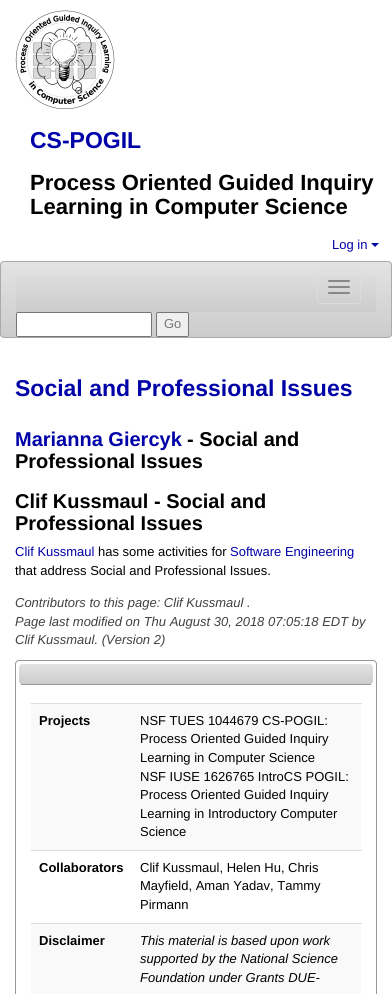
import math
import cairo


def use_color(cr, r, g, b):
  cr.set_source_rgb(r / 255, g / 255, b / 255)

def text(cr, x, y, s, family, size, color, bold=False, italic=False):
  cr.select_font_face(family, cairo.FONT_SLANT_ITALIC if italic else cairo.FONT_SLANT_NORMAL, cairo.FONT_WEIGHT_BOLD if bold else cairo.FONT_WEIGHT_NORMAL)
  cr.set_font_size(size)
  use_color(cr, *color)
  cr.move_to(x, y)
  cr.show_text(s)

def box(cr, x, y, w, h, *color):
  use_color(cr, *color)
  cr.rectangle(x, y, w, h)
  cr.fill()

def round_rect(cr, x, y, w, h, r):
  cr.new_sub_path()
  for i, (u, v) in enumerate([(x + w - r, y + h - r), (x + r, y + h - r), (x + r, y + r), (x + w - r, y + r)]):
    cr.arc(u, v, r, i * math.pi / 2, (i + 1) * math.pi / 2)
  cr.close_path()

def picture(cr, path, x, y, w, h):
  cr.save()
  cr.set_source_surface(cairo.ImageSurface.create_from_png(path), x, y)
  cr.rectangle(x, y, w, h)
  cr.fill()
  cr.restore()

def draw(cr):
  use_color(cr, 255, 255, 255)
  cr.paint()
  picture(cr, "img_01.png", 15, 10, 100, 99)
  use_color(cr, 0, 1, 166)
  cr.new_path()
  cr.move_to(371, 243)
  cr.line_to(379, 243)
  cr.line_to(375, 247)
  cr.close_path()
  cr.fill()
  cr.save()
  round_rect(cr, 0, 261, 392, 77, 4)
  cr.clip()
  gradient = cairo.LinearGradient(196, 262, 196, 337)
  gradient.add_color_stop_rgba(0, 0.89, 0.89, 0.89, 1)
  gradient.add_color_stop_rgba(1, 0.8, 0.8, 0.8, 1)
  cr.set_source(gradient)
  cr.rectangle(0, 262, 392, 75)
  cr.fill()
  cr.restore()
  round_rect(cr, 0.5, 261.5, 391, 76, 3.5)
  use_color(cr, 170, 170, 170)
  cr.set_line_width(1)
  cr.stroke()
  gradient = cairo.LinearGradient(196, 262, 196, 312)
  gradient.add_color_stop_rgba(0, 0.89, 0.89, 0.89, 1)
  gradient.add_color_stop_rgba(1, 0.8, 0.8, 0.8, 1)
  cr.set_source(gradient)
  cr.rectangle(16, 276, 360, 36)
  cr.fill()
  round_rect(cr, 317.5, 270.5, 43, 33, 3.5)
  use_color(cr, 221, 221, 221)
  cr.stroke()
  use_color(cr, 136, 136, 136)
  round_rect(cr, 328, 280, 22, 2, 1)
  cr.fill()
  round_rect(cr, 328, 286, 22, 2, 1)
  cr.fill()
  round_rect(cr, 328, 292, 22, 2, 1)
  cr.fill()
  use_color(cr, 255, 255, 255)
  round_rect(cr, 16.5, 312.5, 135, 24, 1.5)
  cr.fill_preserve()
  use_color(cr, 118, 118, 118)
  cr.stroke()
  use_color(cr, 239, 239, 239)
  round_rect(cr, 156.5, 312.5, 32, 24, 1.5)
  cr.fill_preserve()
  use_color(cr, 118, 118, 118)
  cr.stroke()
  round_rect(cr, 15.5, 660.5, 361, 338, 3.5)
  use_color(cr, 153, 153, 153)
  cr.stroke()
  use_color(cr, 245, 245, 245)
  cr.new_path()
  cr.move_to(22, 664)
  cr.line_to(370, 664)
  cr.curve_to(371.5, 664, 373, 665.5, 373, 667)
  cr.line_to(373, 681)
  cr.curve_to(373, 683, 371, 685, 369, 685)
  cr.line_to(23, 685)
  cr.curve_to(21, 685, 19, 683, 19, 681)
  cr.line_to(19, 667)
  cr.curve_to(19, 665.5, 20.5, 664, 22, 664)
  cr.close_path()
  cr.fill()
  cr.save()
  cr.new_path()
  cr.move_to(22, 664)
  cr.line_to(370, 664)
  cr.curve_to(371.5, 664, 373, 665.5, 373, 667)
  cr.line_to(373, 681)
  cr.curve_to(373, 683, 371, 685, 369, 685)
  cr.line_to(23, 685)
  cr.curve_to(21, 685, 19, 683, 19, 681)
  cr.line_to(19, 667)
  cr.curve_to(19, 665.5, 20.5, 664, 22, 664)
  cr.close_path()
  cr.clip()
  gradient = cairo.LinearGradient(196, 664, 196, 684)
  gradient.add_color_stop_rgba(0, 0.89, 0.89, 0.89, 1)
  gradient.add_color_stop_rgba(1, 0.8, 0.8, 0.8, 1)
  cr.set_source(gradient)
  cr.new_path()
  cr.move_to(22, 664)
  cr.line_to(370, 664)
  cr.curve_to(371.5, 664, 373, 665.5, 373, 667)
  cr.line_to(373, 684)
  cr.line_to(19, 684)
  cr.line_to(19, 667)
  cr.curve_to(19, 665.5, 20.5, 664, 22, 664)
  cr.close_path()
  cr.fill()
  cr.restore()
  box(cr, 21, 684, 350, 1, 153, 153, 153)
  box(cr, 31, 704, 330, 146, 249, 249, 249)
  box(cr, 31, 703, 331, 1, 221, 221, 221)
  box(cr, 31, 850, 331, 1, 221, 221, 221)
  box(cr, 31, 924, 330, 70, 249, 249, 249)
  box(cr, 31, 923, 331, 1, 221, 221, 221)
  text(cr, 30, 148, "CS-POGIL", "Liberation Sans", 23, (0, 1, 166), bold=True)
  text(cr, 30, 190, "Process Oriented Guided Inquiry", "Liberation Sans", 22, (0, 0, 0), bold=True)
  text(cr, 30, 214, "Learning in Computer Science", "Liberation Sans", 22, (0, 0, 0), bold=True)
  text(cr, 332, 249, "Log in", "Liberation Sans", 13, (0, 1, 166))
  text(cr, 164, 328, "Go", "Liberation Sans", 13, (119, 119, 119))
  text(cr, 15, 396, "Social and Professional Issues", "Liberation Sans", 23, (0, 1, 166), bold=True)
  text(cr, 15, 446, "Marianna Giercyk", "Liberation Sans", 20, (0, 1, 166), bold=True)
  text(cr, 187, 446, "- Social and", "Liberation Sans", 20, (0, 0, 0), bold=True)
  text(cr, 15, 468, "Professional Issues", "Liberation Sans", 20, (0, 0, 0), bold=True)
  text(cr, 15, 508, "Clif Kussmaul - Social and", "Liberation Sans", 20, (0, 0, 0), bold=True)
  text(cr, 15, 530, "Professional Issues", "Liberation Sans", 20, (0, 0, 0), bold=True)
  text(cr, 15, 556, "Clif Kussmaul", "Liberation Sans", 13, (0, 1, 166))
  text(cr, 98, 556, "has some activities for", "Liberation Sans", 13, (0, 0, 0))
  text(cr, 230, 556, "Software Engineering", "Liberation Sans", 13, (0, 1, 166))
  text(cr, 15, 575, "that address Social and Professional Issues.", "Liberation Sans", 13, (0, 0, 0))
  text(cr, 15, 607, "Contributors to this page: Clif Kussmaul .", "Liberation Sans", 13, (64, 64, 64), italic=True)
  text(cr, 15, 626, "Page last modified on Thu August 30, 2018 07:05:18 EDT by", "Liberation Sans", 13, (64, 64, 64), italic=True)
  text(cr, 15, 644, "Clif Kussmaul. (Version 2)", "Liberation Sans", 13, (64, 64, 64), italic=True)
  text(cr, 39, 725, "Projects", "Liberation Sans", 13, (0, 0, 0), bold=True)
  text(cr, 140, 725, "NSF TUES 1044679 CS-POGIL:", "Liberation Sans", 13, (0, 0, 0))
  text(cr, 140, 743, "Process Oriented Guided Inquiry", "Liberation Sans", 13, (0, 0, 0))
  text(cr, 140, 762, "Learning in Computer Science", "Liberation Sans", 13, (0, 0, 0))
  text(cr, 140, 781, "NSF IUSE 1626765 IntroCS POGIL:", "Liberation Sans", 13, (0, 0, 0))
  text(cr, 140, 799, "Process Oriented Guided Inquiry", "Liberation Sans", 13, (0, 0, 0))
  text(cr, 140, 818, "Learning in Introductory Computer", "Liberation Sans", 13, (0, 0, 0))
  text(cr, 140, 836, "Science", "Liberation Sans", 13, (0, 0, 0))
  text(cr, 39, 872, "Collaborators", "Liberation Sans", 13, (0, 0, 0), bold=True)
  text(cr, 140, 872, "Clif Kussmaul, Helen Hu, Chris", "Liberation Sans", 13, (0, 0, 0))
  text(cr, 140, 890, "Mayfield, Aman Yadav, Tammy", "Liberation Sans", 13, (0, 0, 0))
  text(cr, 140, 909, "Pirmann", "Liberation Sans", 13, (0, 0, 0))
  text(cr, 39, 945, "Disclaimer", "Liberation Sans", 13, (0, 0, 0), bold=True)
  text(cr, 140, 945, "This material is based upon work", "Liberation Sans", 13, (0, 0, 0), italic=True)
  text(cr, 140, 963, "supported by the National Science", "Liberation Sans", 13, (0, 0, 0), italic=True)
  text(cr, 140, 982, "Foundation under Grants DUE-", "Liberation Sans", 13, (0, 0, 0), italic=True)


surface = cairo.ImageSurface(cairo.FORMAT_RGB24, 392, 994)
cr = cairo.Context(surface)
options = cairo.FontOptions()
options.set_hint_metrics(cairo.HINT_METRICS_OFF)
options.set_hint_style(cairo.HINT_STYLE_NONE)
cr.set_font_options(options)
cr.set_miter_limit(4)
draw(cr)
surface.write_to_png("out.png")
